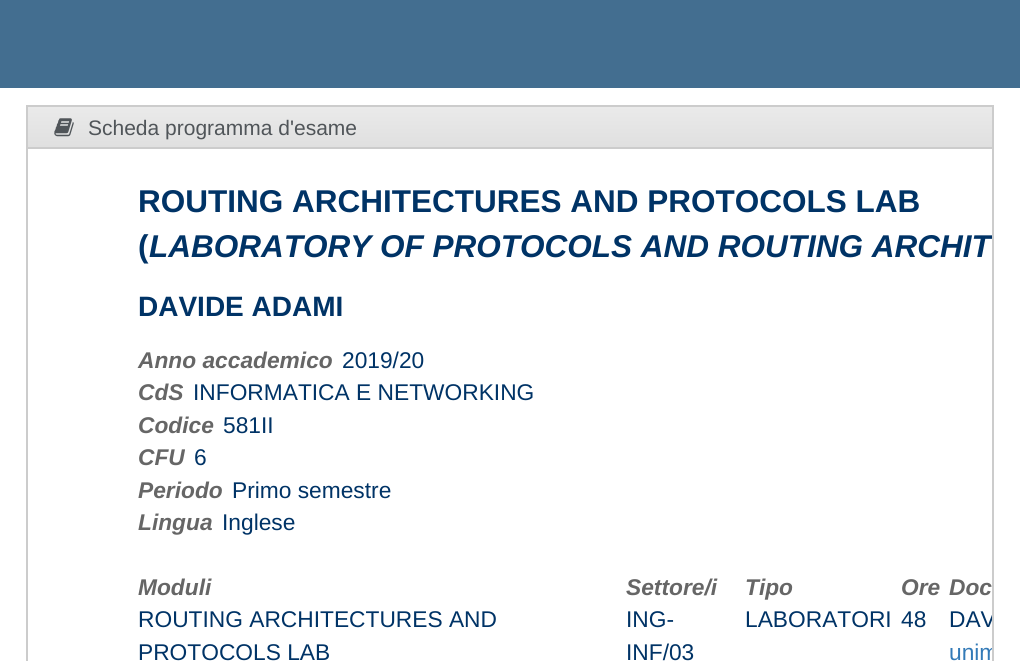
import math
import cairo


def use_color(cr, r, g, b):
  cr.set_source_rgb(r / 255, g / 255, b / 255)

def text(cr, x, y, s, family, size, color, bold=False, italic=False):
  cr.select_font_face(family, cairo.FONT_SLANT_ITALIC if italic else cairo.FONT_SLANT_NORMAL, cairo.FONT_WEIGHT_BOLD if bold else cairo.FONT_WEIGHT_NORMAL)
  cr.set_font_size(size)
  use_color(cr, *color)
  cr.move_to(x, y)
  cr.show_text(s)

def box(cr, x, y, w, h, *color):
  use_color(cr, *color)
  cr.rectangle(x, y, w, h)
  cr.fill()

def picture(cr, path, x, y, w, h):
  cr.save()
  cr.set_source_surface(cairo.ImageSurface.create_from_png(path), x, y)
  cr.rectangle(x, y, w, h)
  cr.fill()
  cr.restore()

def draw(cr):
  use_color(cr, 67, 110, 144)
  cr.paint()
  box(cr, 0, 88, 1020, 573, 255, 255, 255)
  cr.rectangle(27, 106, 966, 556)
  use_color(cr, 204, 204, 204)
  cr.stroke()
  gradient = cairo.LinearGradient(510, 107, 510, 147)
  gradient.add_color_stop_rgba(0, 0.918, 0.918, 0.918, 1)
  gradient.add_color_stop_rgba(1, 0.878, 0.878, 0.878, 1)
  cr.set_source(gradient)
  cr.rectangle(28, 107, 964, 40)
  cr.fill()
  box(cr, 28, 147, 964, 2, 204, 204, 204)
  picture(cr, "img_01.png", 54, 118, 20, 19)
  text(cr, 88, 135, "Scheda programma d'esame", "Liberation Sans", 21, (80, 85, 89))
  text(cr, 138, 212, "ROUTING ARCHITECTURES AND PROTOCOLS LAB", "Liberation Sans", 31.5, (0, 51, 102), bold=True)
  text(cr, 138, 257, "(", "Liberation Sans", 31.5, (0, 51, 102), bold=True)
  cr.save()
  cr.rectangle(28, 149, 964, 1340)
  cr.clip()
  text(cr, 149, 257, "LABORATORY OF PROTOCOLS AND ROUTING ARCHIT", "Liberation Sans", 31.5, (0, 51, 102), bold=True, italic=True)
  cr.restore()
  text(cr, 138, 316, "DAVIDE ADAMI", "Liberation Sans", 28, (0, 51, 102), bold=True)
  text(cr, 138, 368, "Anno accademico", "Liberation Sans", 22.75, (102, 102, 102), bold=True, italic=True)
  text(cr, 342, 368, "2019/20", "Liberation Sans", 22.75, (0, 51, 102))
  text(cr, 138, 400, "CdS", "Liberation Sans", 22.75, (102, 102, 102), bold=True, italic=True)
  text(cr, 193, 400, "INFORMATICA E NETWORKING", "Liberation Sans", 22.75, (0, 51, 102))
  text(cr, 138, 433, "Codice", "Liberation Sans", 22.75, (102, 102, 102), bold=True, italic=True)
  text(cr, 223, 433, "581II", "Liberation Sans", 22.75, (0, 51, 102))
  text(cr, 138, 465, "CFU", "Liberation Sans", 22.75, (102, 102, 102), bold=True, italic=True)
  text(cr, 194, 465, "6", "Liberation Sans", 22.75, (0, 51, 102))
  text(cr, 138, 498, "Periodo", "Liberation Sans", 22.75, (102, 102, 102), bold=True, italic=True)
  text(cr, 232, 498, "Primo semestre", "Liberation Sans", 22.75, (0, 51, 102))
  text(cr, 138, 530, "Lingua", "Liberation Sans", 22.75, (102, 102, 102), bold=True, italic=True)
  text(cr, 222, 530, "Inglese", "Liberation Sans", 22.75, (0, 51, 102))
  text(cr, 138, 595, "Moduli", "Liberation Sans", 22.75, (102, 102, 102), bold=True, italic=True)
  text(cr, 626, 595, "Settore/i", "Liberation Sans", 22.75, (102, 102, 102), bold=True, italic=True)
  text(cr, 745, 595, "Tipo", "Liberation Sans", 22.75, (102, 102, 102), bold=True, italic=True)
  text(cr, 901, 595, "Ore", "Liberation Sans", 22.75, (102, 102, 102), bold=True, italic=True)
  text(cr, 949, 595, "Doc", "Liberation Sans", 22.75, (102, 102, 102), bold=True, italic=True)
  text(cr, 138, 627, "ROUTING ARCHITECTURES AND", "Liberation Sans", 22.75, (0, 51, 102))
  text(cr, 138, 660, "PROTOCOLS LAB", "Liberation Sans", 22.75, (0, 51, 102))
  text(cr, 626, 627, "ING-", "Liberation Sans", 22.75, (0, 51, 102))
  text(cr, 626, 660, "INF/03", "Liberation Sans", 22.75, (0, 51, 102))
  text(cr, 745, 627, "LABORATORI", "Liberation Sans", 22.75, (0, 51, 102))
  text(cr, 901, 627, "48", "Liberation Sans", 22.75, (0, 51, 102))
  cr.save()
  cr.rectangle(28, 149, 964, 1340)
  cr.clip()
  text(cr, 949, 627, "DAV", "Liberation Sans", 22.75, (0, 51, 102))
  text(cr, 949, 660, "unim", "Liberation Sans", 22.75, (51, 122, 183))
  cr.restore()


surface = cairo.ImageSurface(cairo.FORMAT_RGB24, 1020, 661)
cr = cairo.Context(surface)
options = cairo.FontOptions()
options.set_hint_metrics(cairo.HINT_METRICS_OFF)
options.set_hint_style(cairo.HINT_STYLE_NONE)
cr.set_font_options(options)
cr.set_miter_limit(4)
draw(cr)
surface.write_to_png("out.png")
